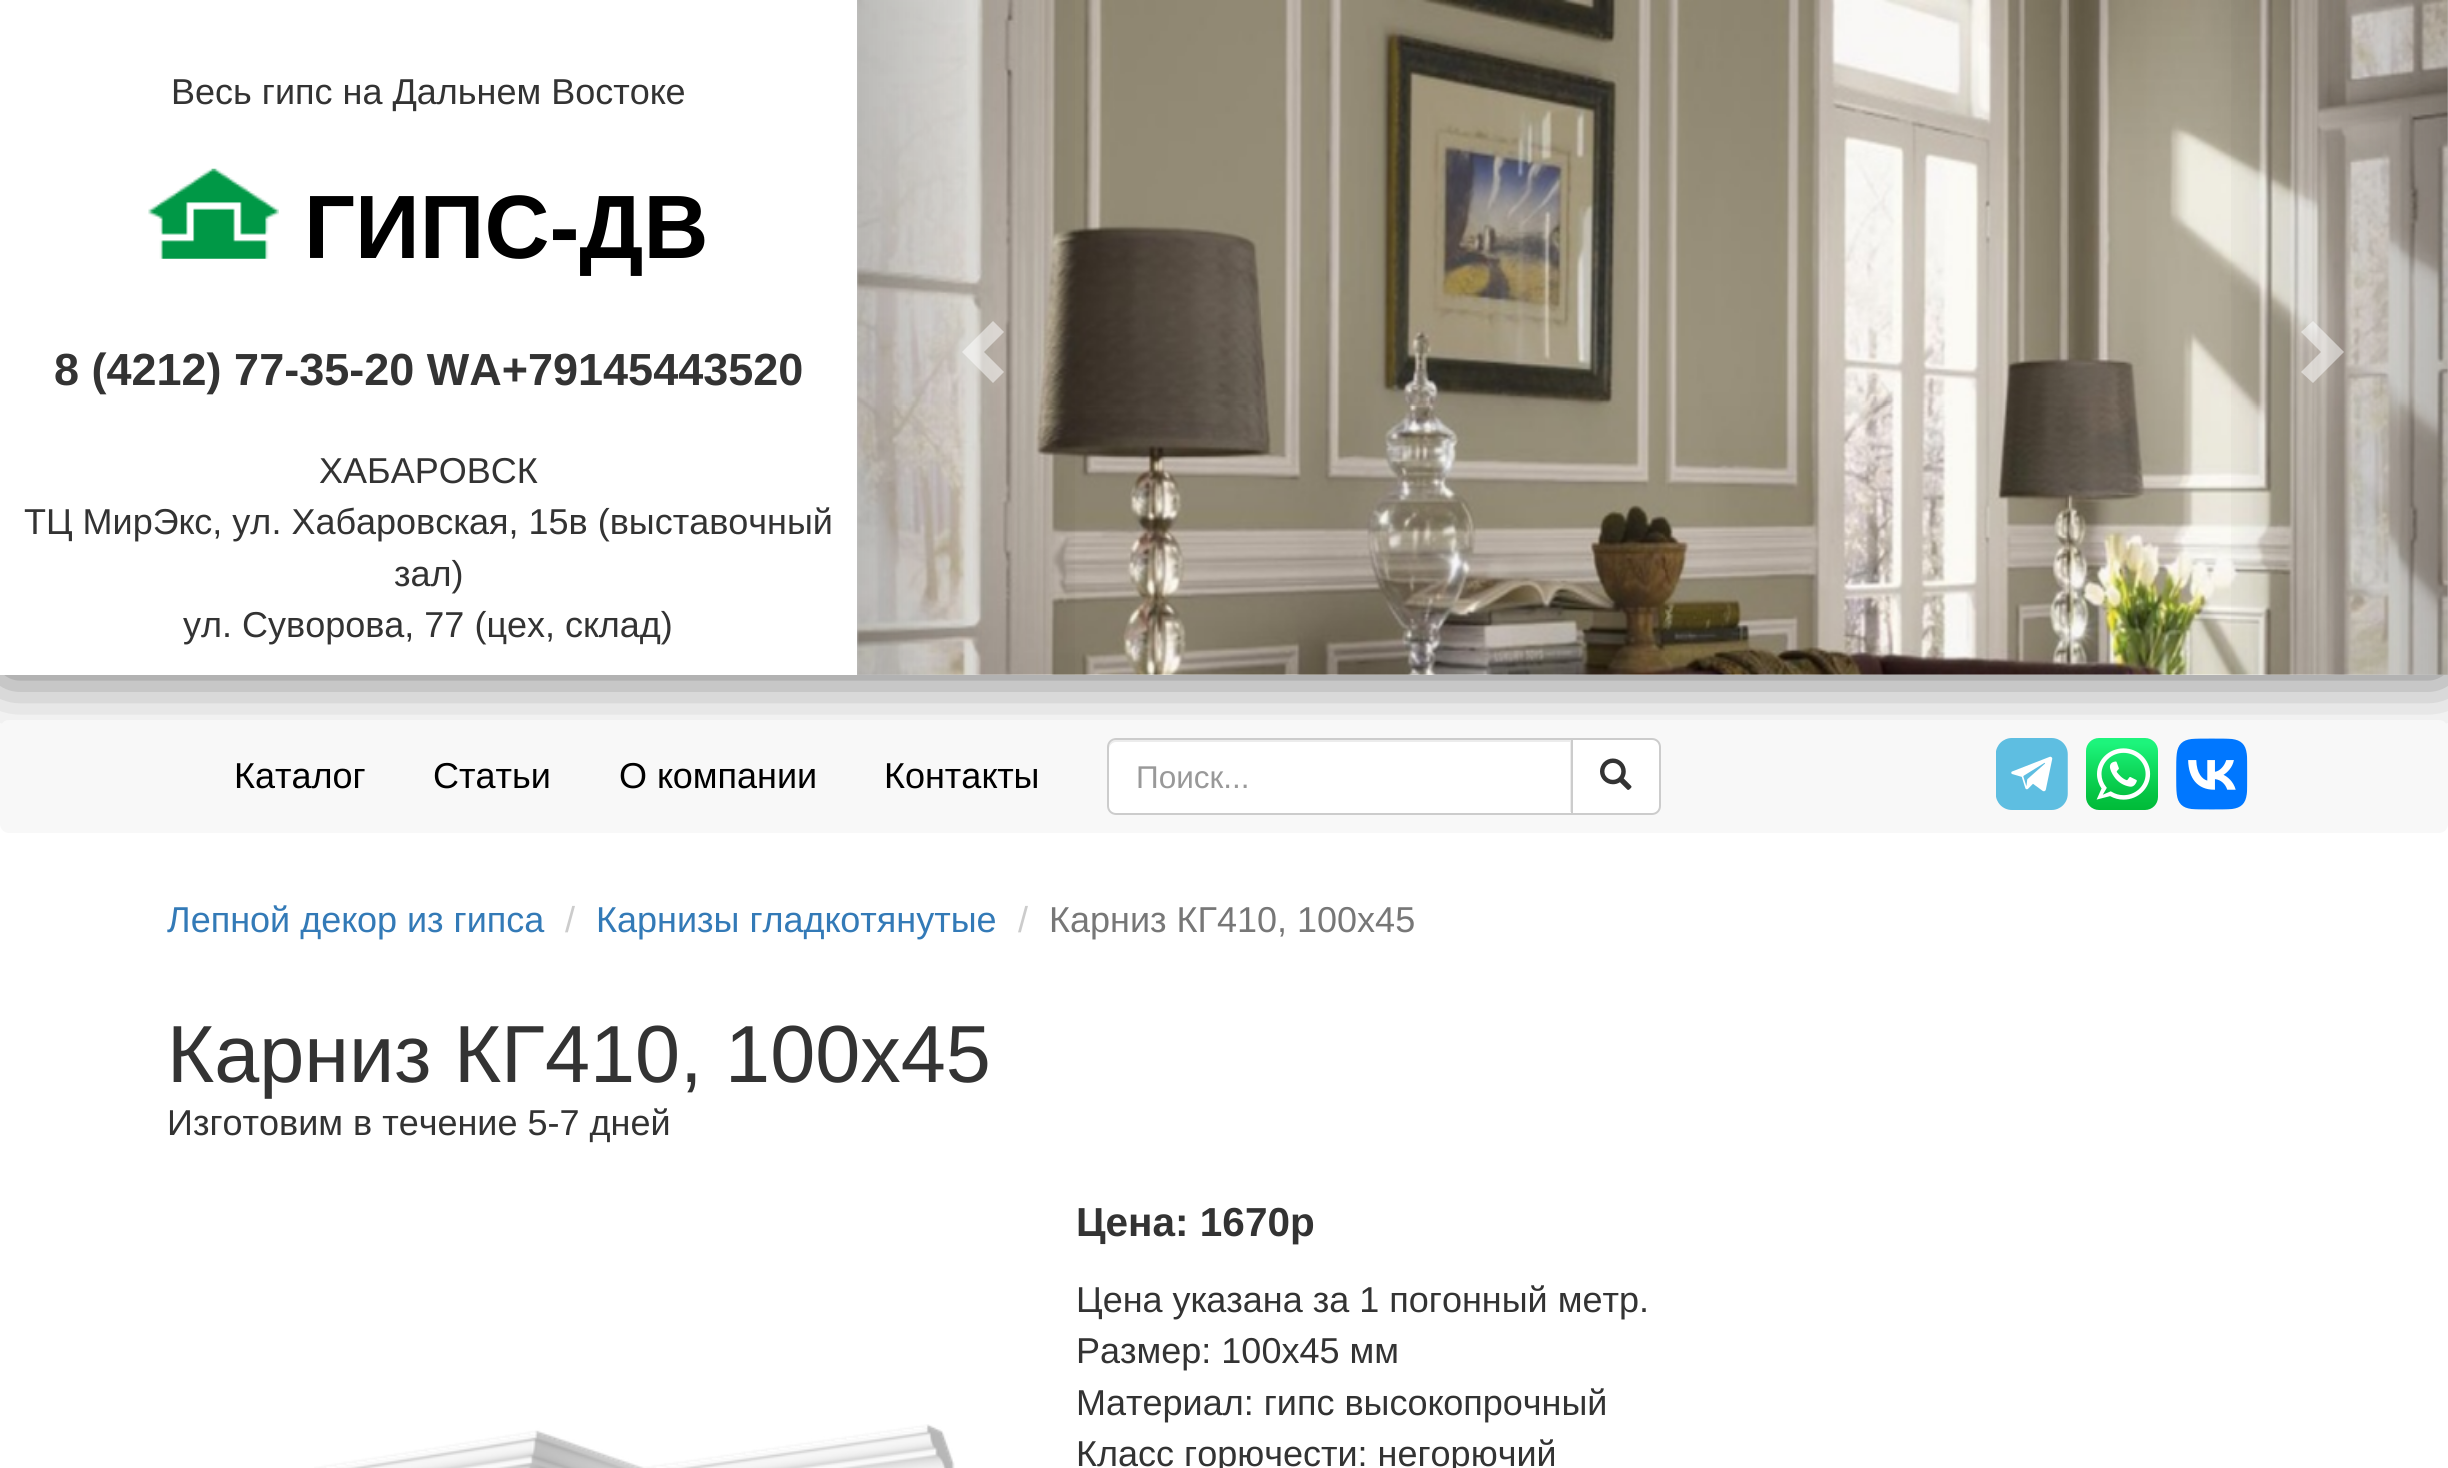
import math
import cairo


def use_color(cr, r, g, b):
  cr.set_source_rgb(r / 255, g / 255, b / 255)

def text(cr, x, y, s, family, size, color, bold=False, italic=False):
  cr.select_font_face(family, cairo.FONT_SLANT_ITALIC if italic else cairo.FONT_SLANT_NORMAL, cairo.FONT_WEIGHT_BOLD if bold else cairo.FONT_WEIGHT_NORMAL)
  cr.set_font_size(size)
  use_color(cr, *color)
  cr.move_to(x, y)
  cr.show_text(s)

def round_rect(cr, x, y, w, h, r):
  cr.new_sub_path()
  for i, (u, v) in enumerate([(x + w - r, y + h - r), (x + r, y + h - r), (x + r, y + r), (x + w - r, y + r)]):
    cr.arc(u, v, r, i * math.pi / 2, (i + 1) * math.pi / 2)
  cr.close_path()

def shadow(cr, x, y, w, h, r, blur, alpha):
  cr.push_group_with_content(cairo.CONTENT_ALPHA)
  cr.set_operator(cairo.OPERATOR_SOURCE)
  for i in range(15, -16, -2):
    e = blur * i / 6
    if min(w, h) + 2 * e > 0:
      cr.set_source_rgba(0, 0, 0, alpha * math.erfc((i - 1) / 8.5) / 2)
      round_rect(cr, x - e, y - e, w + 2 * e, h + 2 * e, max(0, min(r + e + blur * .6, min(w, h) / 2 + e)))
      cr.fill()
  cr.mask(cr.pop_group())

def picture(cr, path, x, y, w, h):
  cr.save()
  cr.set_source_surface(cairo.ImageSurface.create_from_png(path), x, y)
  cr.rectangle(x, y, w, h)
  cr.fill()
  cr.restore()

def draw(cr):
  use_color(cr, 255, 255, 255)
  cr.paint()
  cr.save()
  cr.rectangle(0, 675, 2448, 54)
  cr.clip()
  use_color(cr, 102, 102, 102)
  shadow(cr, 0, 0, 2448, 675, 0, 34, 1)
  cr.restore()
  picture(cr, "img_01.png", 148, 168, 131, 91)
  picture(cr, "img_02.png", 857, 0, 1591, 675)
  gradient = cairo.LinearGradient(857, 338, 1096, 338)
  gradient.add_color_stop_rgba(0, 0, 0, 0, 0.25)
  gradient.add_color_stop_rgba(1, 0, 0, 0, 0)
  cr.set_source(gradient)
  cr.rectangle(857, 0, 218, 675)
  cr.fill()
  cr.set_source_rgba(1, 1, 1, 0.5)
  cr.new_path()
  cr.move_to(1004, 332)
  cr.line_to(984, 352)
  cr.line_to(1004, 372)
  cr.line_to(993, 383)
  cr.line_to(962, 352)
  cr.line_to(993, 321)
  cr.close_path()
  cr.fill()
  gradient = cairo.LinearGradient(2210, 338, 2448, 338)
  gradient.add_color_stop_rgba(0, 0, 0, 0, 0)
  gradient.add_color_stop_rgba(1, 0, 0, 0, 0.25)
  cr.set_source(gradient)
  cr.rectangle(2231, 0, 217, 675)
  cr.fill()
  cr.set_source_rgba(1, 1, 1, 0.5)
  cr.new_path()
  cr.move_to(2344, 352)
  cr.line_to(2313, 383)
  cr.line_to(2301, 372)
  cr.line_to(2321, 352)
  cr.line_to(2301, 332)
  cr.line_to(2313, 321)
  cr.close_path()
  cr.fill()
  use_color(cr, 248, 248, 248)
  round_rect(cr, 0, 720, 2448, 113, 9)
  cr.fill()
  use_color(cr, 255, 255, 255)
  cr.new_path()
  cr.move_to(1116, 738)
  cr.line_to(1573, 738)
  cr.line_to(1573, 815)
  cr.line_to(1116, 815)
  cr.curve_to(1111, 815, 1107, 811, 1107, 806)
  cr.line_to(1107, 747)
  cr.curve_to(1107, 742, 1111, 738, 1116, 738)
  cr.close_path()
  cr.fill()
  use_color(cr, 236, 236, 236)
  cr.new_path()
  cr.move_to(1116, 742)
  cr.line_to(1570, 742)
  cr.line_to(1570, 812)
  cr.line_to(1571, 812)
  cr.line_to(1571, 740)
  cr.line_to(1116, 740)
  cr.curve_to(1112, 740, 1109, 743, 1109, 747)
  cr.line_to(1109, 749)
  cr.curve_to(1109, 746, 1112, 742, 1116, 742)
  cr.close_path()
  cr.fill()
  cr.new_path()
  cr.move_to(1116, 739)
  cr.line_to(1572, 739)
  cr.line_to(1572, 814)
  cr.line_to(1116, 814)
  cr.curve_to(1111.5, 814, 1108, 810.5, 1108, 806)
  cr.line_to(1108, 747)
  cr.curve_to(1108, 742.5, 1111.5, 739, 1116, 739)
  cr.close_path()
  use_color(cr, 204, 204, 204)
  cr.stroke()
  use_color(cr, 255, 255, 255)
  cr.new_path()
  cr.move_to(1572, 739)
  cr.line_to(1652, 739)
  cr.curve_to(1656.5, 739, 1660, 742.5, 1660, 747)
  cr.line_to(1660, 806)
  cr.curve_to(1660, 810.5, 1656.5, 814, 1652, 814)
  cr.line_to(1572, 814)
  cr.close_path()
  cr.fill_preserve()
  use_color(cr, 204, 204, 204)
  cr.stroke()
  picture(cr, "img_03.png", 1600, 758, 32, 32)
  picture(cr, "img_04.png", 1996, 738, 72, 72)
  picture(cr, "img_05.png", 2086, 738, 72, 72)
  picture(cr, "img_06.png", 2176, 738, 72, 72)
  picture(cr, "img_07.png", 314, 1424, 641, 44)
  text(cr, 171, 104, "Весь гипс на Дальнем Востоке", "Liberation Sans", 36, (51, 51, 51))
  text(cr, 304, 258, "ГИПС-ДВ", "Liberation Sans", 90, (0, 0, 0), bold=True)
  text(cr, 54, 385, "8 (4212) 77-35-20 WA+79145443520", "Liberation Sans", 45, (51, 51, 51), bold=True)
  text(cr, 319, 483, "ХАБАРОВСК", "Liberation Sans", 36, (51, 51, 51))
  text(cr, 24, 534, "ТЦ МирЭкс, ул. Хабаровская, 15в (выставочный", "Liberation Sans", 36, (51, 51, 51))
  text(cr, 394, 586, "зал)", "Liberation Sans", 36, (51, 51, 51))
  text(cr, 183, 637, "ул. Суворова, 77 (цех, склад)", "Liberation Sans", 36, (51, 51, 51))
  text(cr, 234, 788, "Каталог", "Liberation Sans", 36, (0, 0, 0))
  text(cr, 433, 788, "Статьи", "Liberation Sans", 36, (0, 0, 0))
  text(cr, 619, 788, "О компании", "Liberation Sans", 36, (0, 0, 0))
  text(cr, 884, 788, "Контакты", "Liberation Sans", 36, (0, 0, 0))
  text(cr, 1136, 788, "Поиск...", "Liberation Sans", 31.5, (153, 153, 153))
  text(cr, 167, 932, "Лепной декор из гипса", "Liberation Sans", 36, (51, 122, 183))
  text(cr, 565, 932, "/", "Liberation Sans", 36, (204, 204, 204))
  text(cr, 596, 932, "Карнизы гладкотянутые", "Liberation Sans", 36, (51, 122, 183))
  text(cr, 1018, 932, "/", "Liberation Sans", 36, (204, 204, 204))
  text(cr, 1049, 932, "Карниз КГ410, 100х45", "Liberation Sans", 36, (119, 119, 119))
  text(cr, 167, 1082, "Карниз КГ410, 100х45", "Liberation Sans", 81, (51, 51, 51))
  text(cr, 167, 1135, "Изготовим в течение 5-7 дней", "Liberation Sans", 36, (51, 51, 51))
  text(cr, 1076, 1236, "Цена: 1670р", "Liberation Sans", 40.5, (51, 51, 51), bold=True)
  text(cr, 1076, 1312, "Цена указана за 1 погонный метр.", "Liberation Sans", 36, (51, 51, 51))
  text(cr, 1076, 1363, "Размер: 100х45 мм", "Liberation Sans", 36, (51, 51, 51))
  text(cr, 1076, 1415, "Материал: гипс высокопрочный", "Liberation Sans", 36, (51, 51, 51))
  text(cr, 1076, 1466, "Класс горючести: негорючий", "Liberation Sans", 36, (51, 51, 51))


surface = cairo.ImageSurface(cairo.FORMAT_RGB24, 2448, 1468)
cr = cairo.Context(surface)
options = cairo.FontOptions()
options.set_hint_metrics(cairo.HINT_METRICS_OFF)
options.set_hint_style(cairo.HINT_STYLE_NONE)
cr.set_font_options(options)
cr.set_miter_limit(4)
draw(cr)
surface.write_to_png("out.png")
